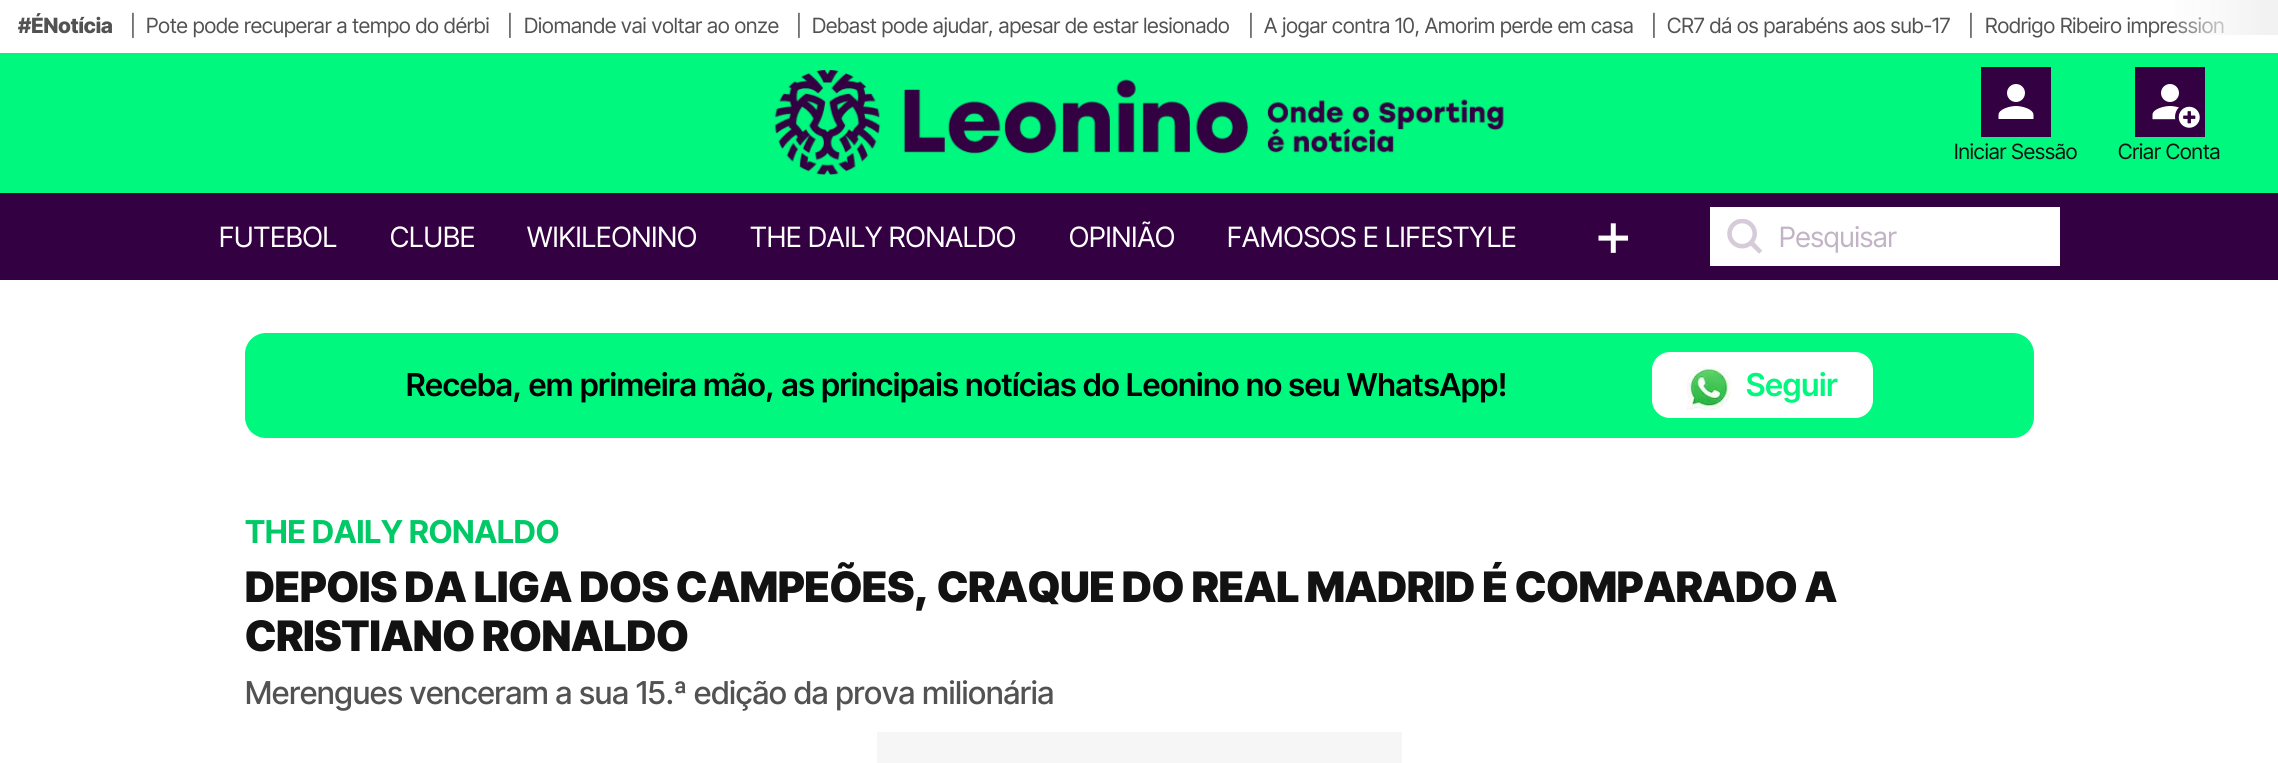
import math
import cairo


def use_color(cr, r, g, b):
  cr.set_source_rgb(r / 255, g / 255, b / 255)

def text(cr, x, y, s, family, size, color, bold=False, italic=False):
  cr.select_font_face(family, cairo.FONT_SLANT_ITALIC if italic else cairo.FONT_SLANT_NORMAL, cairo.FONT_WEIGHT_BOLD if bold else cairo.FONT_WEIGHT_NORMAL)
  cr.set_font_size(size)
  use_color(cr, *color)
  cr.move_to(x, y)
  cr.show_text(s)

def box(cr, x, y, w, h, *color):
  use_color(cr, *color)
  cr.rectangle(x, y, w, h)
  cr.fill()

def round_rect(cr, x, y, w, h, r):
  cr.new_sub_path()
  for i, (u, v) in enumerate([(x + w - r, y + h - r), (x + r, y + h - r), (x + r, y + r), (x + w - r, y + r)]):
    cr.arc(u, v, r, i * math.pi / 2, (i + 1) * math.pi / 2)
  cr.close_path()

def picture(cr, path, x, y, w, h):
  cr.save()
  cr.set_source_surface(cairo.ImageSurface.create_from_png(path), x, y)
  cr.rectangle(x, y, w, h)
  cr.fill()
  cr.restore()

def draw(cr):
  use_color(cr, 255, 255, 255)
  cr.paint()
  box(cr, 0, 53, 2278, 140, 0, 248, 126)
  picture(cr, "img_01.png", 774, 70, 730, 105)
  box(cr, 1981, 67, 70, 70, 51, 0, 66)
  use_color(cr, 255, 255, 255)
  cr.arc(2016, 93, 9, 0, 2 * math.pi)
  cr.fill()
  cr.new_path()
  cr.move_to(2016, 106)
  cr.curve_to(2010, 106, 1998.5, 109, 1998.5, 115)
  cr.line_to(1998.5, 119)
  cr.line_to(2033.5, 119)
  cr.line_to(2033.5, 115)
  cr.curve_to(2033.5, 109, 2022, 106, 2016, 106)
  cr.close_path()
  cr.fill()
  picture(cr, "img_02.png", 2135, 67, 70, 70)
  box(cr, 0, 193, 2278, 87, 51, 0, 66)
  box(cr, 1710, 207, 350, 59, 255, 255, 255)
  picture(cr, "img_03.png", 1727, 219, 35, 35)
  use_color(cr, 0, 248, 126)
  round_rect(cr, 245, 333, 1789, 105, 21)
  cr.fill()
  use_color(cr, 255, 255, 255)
  round_rect(cr, 1652, 352, 221, 66, 18)
  cr.fill()
  picture(cr, "img_04.png", 1687, 366, 44, 44)
  box(cr, 877, 732, 525, 31, 246, 246, 246)
  cr.save()
  cr.rectangle(18, 0, 2243, 53)
  cr.clip()
  text(cr, 18, 33, "#ÉNotícia", "Inter Tight ExtraBold", 21, (82, 82, 82))
  cr.restore()
  text(cr, 130, 33, "|", "Inter Tight", 21, (82, 82, 82))
  text(cr, 146, 33, "Pote pode recuperar a tempo do dérbi", "Inter Tight", 21, (82, 82, 82))
  text(cr, 507, 33, "|", "Inter Tight", 21, (82, 82, 82))
  text(cr, 524, 33, "Diomande vai voltar ao onze", "Inter Tight", 21, (82, 82, 82))
  text(cr, 796, 33, "|", "Inter Tight", 21, (82, 82, 82))
  text(cr, 812, 33, "Debast pode ajudar, apesar de estar lesionado", "Inter Tight", 21, (82, 82, 82))
  text(cr, 1248, 33, "|", "Inter Tight", 21, (82, 82, 82))
  text(cr, 1264, 33, "A jogar contra 10, Amorim perde em casa", "Inter Tight", 21, (82, 82, 82))
  text(cr, 1651, 33, "|", "Inter Tight", 21, (82, 82, 82))
  text(cr, 1667, 33, "CR7 dá os parabéns aos sub-17", "Inter Tight", 21, (82, 82, 82))
  text(cr, 1968, 33, "|", "Inter Tight", 21, (82, 82, 82))
  text(cr, 1985, 33, "Rodrigo Ribeiro impression", "Inter Tight", 21, (82, 82, 82))
  gradient = cairo.LinearGradient(2159, 26, 2261, 26)
  gradient.add_color_stop_rgba(0, 0.969, 0.969, 0.969, 0)
  gradient.add_color_stop_rgba(0.53, 0.969, 0.969, 0.969, 0.63)
  gradient.add_color_stop_rgba(1, 0.949, 0.949, 0.949, 1)
  cr.set_source(gradient)
  cr.rectangle(2174, 0, 104, 35)
  cr.fill()
  text(cr, 1954, 159, "Iniciar Sessão", "Inter Tight", 21, (18, 18, 18))
  text(cr, 2118, 159, "Criar Conta", "Inter Tight", 21, (18, 18, 18))
  text(cr, 219, 247, "FUTEBOL", "Inter Tight", 28, (255, 255, 255))
  text(cr, 390, 247, "CLUBE", "Inter Tight", 28, (255, 255, 255))
  text(cr, 527, 247, "WIKILEONINO", "Inter Tight", 28, (255, 255, 255))
  text(cr, 750, 247, "THE DAILY RONALDO", "Inter Tight", 28, (255, 255, 255))
  text(cr, 1069, 247, "OPINIÃO", "Inter Tight", 28, (255, 255, 255))
  text(cr, 1227, 247, "FAMOSOS E LIFESTYLE", "Inter Tight", 28, (255, 255, 255))
  text(cr, 1594, 256, "+", "Inter Tight", 63, (255, 255, 255))
  text(cr, 1779, 247, "Pesquisar", "Inter Tight", 28, (194, 179, 198))
  text(cr, 406, 396, "Receba, em primeira mão, as principais notícias do Leonino no seu WhatsApp!", "Inter Tight SemiBold", 31.5, (0, 0, 0))
  text(cr, 1746, 396, "Seguir", "Inter Tight SemiBold", 31.5, (0, 248, 126))
  text(cr, 245, 543, "THE DAILY RONALDO", "Inter Tight", 31.5, (0, 201, 102), bold=True)
  text(cr, 245, 602, "DEPOIS DA LIGA DOS CAMPEÕES, CRAQUE DO REAL MADRID É COMPARADO A", "Inter Tight Black", 42, (18, 18, 18))
  text(cr, 245, 651, "CRISTIANO RONALDO", "Inter Tight Black", 42, (18, 18, 18))
  text(cr, 245, 704, "Merengues venceram a sua 15.ª edição da prova milionária", "Inter Tight Medium", 31.5, (82, 82, 82))


surface = cairo.ImageSurface(cairo.FORMAT_RGB24, 2278, 763)
cr = cairo.Context(surface)
options = cairo.FontOptions()
options.set_hint_metrics(cairo.HINT_METRICS_OFF)
options.set_hint_style(cairo.HINT_STYLE_NONE)
cr.set_font_options(options)
cr.set_miter_limit(4)
draw(cr)
surface.write_to_png("out.png")
